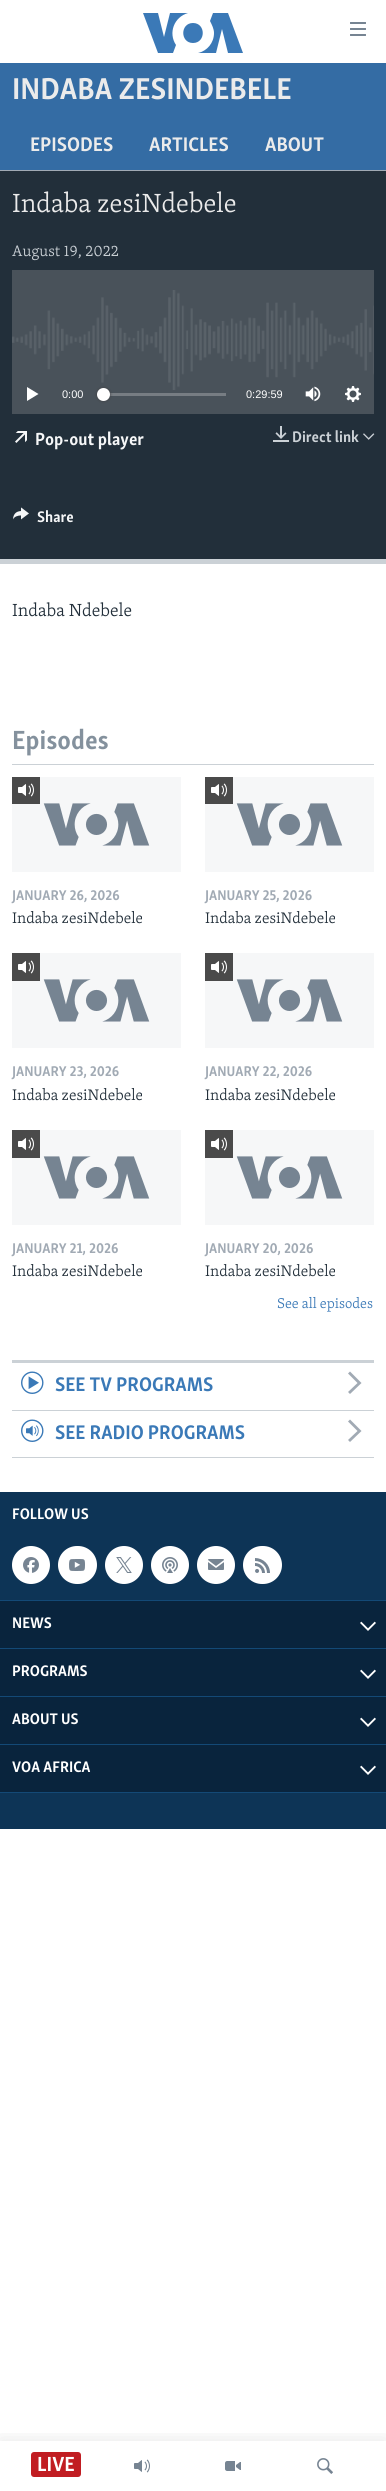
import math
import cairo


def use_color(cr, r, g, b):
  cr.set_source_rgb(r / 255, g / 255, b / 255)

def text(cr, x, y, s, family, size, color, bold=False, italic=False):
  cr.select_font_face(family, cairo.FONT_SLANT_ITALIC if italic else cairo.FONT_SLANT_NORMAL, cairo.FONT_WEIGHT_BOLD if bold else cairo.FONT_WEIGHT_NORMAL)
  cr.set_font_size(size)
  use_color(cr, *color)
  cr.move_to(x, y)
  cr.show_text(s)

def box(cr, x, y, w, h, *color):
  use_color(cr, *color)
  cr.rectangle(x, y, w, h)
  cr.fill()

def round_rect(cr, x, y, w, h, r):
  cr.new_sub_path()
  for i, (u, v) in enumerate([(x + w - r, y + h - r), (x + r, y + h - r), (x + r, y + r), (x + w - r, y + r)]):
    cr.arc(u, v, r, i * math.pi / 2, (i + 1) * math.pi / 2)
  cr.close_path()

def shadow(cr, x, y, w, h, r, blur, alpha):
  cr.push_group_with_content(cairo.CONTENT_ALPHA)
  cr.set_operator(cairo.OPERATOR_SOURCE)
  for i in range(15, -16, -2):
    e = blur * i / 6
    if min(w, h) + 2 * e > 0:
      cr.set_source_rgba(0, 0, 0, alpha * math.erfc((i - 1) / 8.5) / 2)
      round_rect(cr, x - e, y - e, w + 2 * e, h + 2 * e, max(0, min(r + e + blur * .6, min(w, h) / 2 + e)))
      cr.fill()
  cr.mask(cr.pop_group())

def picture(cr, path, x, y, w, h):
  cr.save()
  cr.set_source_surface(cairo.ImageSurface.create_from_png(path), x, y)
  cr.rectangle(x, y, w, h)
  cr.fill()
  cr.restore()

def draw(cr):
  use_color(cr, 255, 255, 255)
  cr.paint()
  box(cr, 0, 63, 386, 107, 52, 108, 164)
  box(cr, 0, 171, 386, 388, 34, 47, 58)
  box(cr, 0, 170, 386, 1, 161, 170, 180)
  box(cr, 0, 559, 386, 5, 203, 209, 214)
  box(cr, 12, 270, 362, 144, 73, 82, 90)
  picture(cr, "img_01.png", 12, 290, 362, 100)
  use_color(cr, 255, 255, 255)
  cr.new_path()
  cr.move_to(27, 401)
  cr.line_to(38.5, 394)
  cr.line_to(27, 387)
  cr.close_path()
  cr.fill()
  box(cr, 103, 393, 123, 3, 119, 125, 131)
  use_color(cr, 65, 65, 68)
  shadow(cr, 97, 388, 13, 13, 6.5, 1.5, 1)
  use_color(cr, 255, 255, 255)
  cr.arc(103.5, 394.5, 6.5, 0, 2 * math.pi)
  cr.fill()
  picture(cr, "img_02.png", 305, 386, 16, 16)
  picture(cr, "img_03.png", 345, 386, 16, 16)
  picture(cr, "img_04.png", 15, 431, 12, 12)
  picture(cr, "img_05.png", 273, 426, 16, 16)
  picture(cr, "img_06.png", 363, 433, 12, 7)
  picture(cr, "img_07.png", 13, 507, 16, 13)
  box(cr, 12, 764, 362, 1, 203, 209, 214)
  box(cr, 12, 777, 169, 95, 246, 247, 248)
  picture(cr, "img_08.png", 43, 803, 107, 43)
  box(cr, 12, 777, 28, 27, 74, 74, 74)
  picture(cr, "img_09.png", 18, 783, 16, 14)
  box(cr, 205, 777, 169, 95, 246, 247, 248)
  picture(cr, "img_08.png", 236, 803, 107, 43)
  box(cr, 205, 777, 28, 27, 74, 74, 74)
  picture(cr, "img_09.png", 211, 783, 16, 14)
  box(cr, 12, 953, 169, 95, 246, 247, 248)
  picture(cr, "img_08.png", 43, 979, 107, 43)
  box(cr, 12, 953, 28, 28, 74, 74, 74)
  picture(cr, "img_09.png", 18, 960, 16, 14)
  box(cr, 205, 953, 169, 95, 246, 247, 248)
  picture(cr, "img_08.png", 236, 979, 107, 43)
  box(cr, 205, 953, 28, 28, 74, 74, 74)
  picture(cr, "img_09.png", 211, 960, 16, 14)
  box(cr, 12, 1130, 169, 95, 246, 247, 248)
  picture(cr, "img_08.png", 43, 1156, 107, 43)
  box(cr, 12, 1130, 28, 28, 74, 74, 74)
  picture(cr, "img_09.png", 18, 1137, 16, 14)
  box(cr, 205, 1130, 169, 95, 246, 247, 248)
  picture(cr, "img_08.png", 236, 1156, 107, 43)
  box(cr, 205, 1130, 28, 28, 74, 74, 74)
  picture(cr, "img_09.png", 211, 1137, 16, 14)
  box(cr, 12, 1360, 362, 3, 203, 209, 214)
  box(cr, 12, 1410, 362, 1, 203, 209, 214)
  picture(cr, "img_10.png", 21, 1371, 23, 23)
  use_color(cr, 161, 170, 180)
  cr.new_path()
  cr.move_to(350, 1394)
  cr.line_to(361.5, 1383)
  cr.line_to(350, 1371.5)
  cr.line_to(348, 1373.5)
  cr.line_to(357.5, 1383)
  cr.line_to(348, 1392)
  cr.close_path()
  cr.fill()
  box(cr, 12, 1457, 362, 1, 203, 209, 214)
  picture(cr, "img_11.png", 21, 1419, 23, 23)
  use_color(cr, 161, 170, 180)
  cr.new_path()
  cr.move_to(350, 1442)
  cr.line_to(361.5, 1431)
  cr.line_to(350, 1419.5)
  cr.line_to(348, 1421.5)
  cr.line_to(357.5, 1431)
  cr.line_to(348, 1440)
  cr.close_path()
  cr.fill()
  box(cr, 0, 1492, 386, 337, 13, 52, 86)
  box(cr, 0, 1792, 386, 1, 19, 73, 118)
  use_color(cr, 255, 255, 255)
  cr.arc(31, 1565, 19, 0, 2 * math.pi)
  cr.fill()
  picture(cr, "img_12.png", 23, 1557, 16, 16)
  round_rect(cr, 58, 1546, 39, 38, 19)
  cr.fill()
  picture(cr, "img_13.png", 69, 1559, 16, 12)
  cr.arc(124, 1565, 19, 0, 2 * math.pi)
  cr.fill()
  picture(cr, "img_14.png", 116, 1557, 16, 16)
  cr.arc(170, 1565, 19, 0, 2 * math.pi)
  cr.fill()
  picture(cr, "img_15.png", 162, 1557, 16, 16)
  cr.arc(216, 1565, 19, 0, 2 * math.pi)
  cr.fill()
  picture(cr, "img_16.png", 208, 1559, 16, 11)
  round_rect(cr, 243, 1546, 39, 38, 19)
  cr.fill()
  picture(cr, "img_17.png", 255, 1558, 15, 15)
  box(cr, 0, 1600, 386, 1, 19, 73, 118)
  box(cr, 0, 1601, 386, 47, 9, 36, 61)
  picture(cr, "img_18.png", 360, 1621, 16, 10)
  box(cr, 0, 1648, 386, 1, 19, 73, 118)
  box(cr, 0, 1649, 386, 47, 9, 36, 61)
  picture(cr, "img_18.png", 360, 1669, 16, 10)
  box(cr, 0, 1696, 386, 1, 19, 73, 118)
  box(cr, 0, 1697, 386, 47, 9, 36, 61)
  picture(cr, "img_18.png", 360, 1717, 16, 10)
  box(cr, 0, 1744, 386, 1, 19, 73, 118)
  box(cr, 0, 1745, 386, 47, 9, 36, 61)
  picture(cr, "img_18.png", 360, 1765, 16, 10)
  use_color(cr, 59, 121, 183)
  cr.new_path()
  cr.move_to(176, 45)
  cr.line_to(173, 53)
  cr.line_to(158, 53)
  cr.line_to(143, 13)
  cr.line_to(158, 13)
  cr.line_to(164, 37)
  cr.line_to(170, 13)
  cr.line_to(188, 13)
  cr.curve_to(174, 17, 168, 33, 176, 45)
  cr.close_path()
  cr.move_to(193, 23)
  cr.curve_to(180, 23, 180, 43, 193, 43)
  cr.curve_to(206, 43, 206, 23, 193, 23)
  cr.close_path()
  cr.move_to(214, 33)
  cr.curve_to(214, 43, 207, 51, 198, 53)
  cr.line_to(216, 53)
  cr.line_to(222, 29)
  cr.line_to(228, 53)
  cr.line_to(243, 53)
  cr.line_to(228, 13)
  cr.line_to(213, 13)
  cr.line_to(210, 21)
  cr.curve_to(212, 25, 214, 29, 214, 33)
  cr.close_path()
  cr.fill()
  picture(cr, "img_19.png", 350, 22, 16, 14)
  cr.save()
  cr.rectangle(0, 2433, 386, 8)
  cr.clip()
  use_color(cr, 0, 0, 0)
  shadow(cr, 0, 2441, 386, 50, 0, 10, 0.1)
  cr.restore()
  use_color(cr, 193, 29, 34)
  round_rect(cr, 31, 2452, 50, 25, 3)
  cr.fill()
  picture(cr, "img_20.png", 134, 2459, 16, 14)
  picture(cr, "img_21.png", 225, 2461, 16, 10)
  picture(cr, "img_22.png", 317, 2458, 16, 16)
  text(cr, 12, 99, "INDABA ZESINDEBELE", "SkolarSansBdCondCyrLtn", 31, (235, 235, 235), bold=True)
  text(cr, 30, 151, "EPISODES", "SkolarSansBdCondCyrLtn", 20.25, (235, 235, 235), bold=True)
  text(cr, 149, 151, "ARTICLES", "SkolarSansBdCondCyrLtn", 20.25, (235, 235, 235), bold=True)
  text(cr, 265, 151, "ABOUT", "SkolarSansBdCondCyrLtn", 20.25, (235, 235, 235), bold=True)
  text(cr, 12, 212, "Indaba zesiNdebele", "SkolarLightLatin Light", 27, (235, 235, 235))
  text(cr, 12, 256, "August 19, 2022", "SkolarLightLatin Light", 15.75, (203, 209, 214))
  text(cr, 62, 398, "0:00", "Liberation Sans", 11, (255, 255, 255))
  text(cr, 246, 398, "0:29:59", "Liberation Sans", 11, (255, 255, 255))
  text(cr, 35, 445, "Pop-out player", "SkolarSansBdCondCyrLtn", 18, (246, 247, 248), bold=True)
  text(cr, 292, 442, "Direct link", "SkolarSansBdCondCyrLtn", 15.75, (203, 209, 214), bold=True)
  text(cr, 37, 522, "Share", "SkolarSansBdCondCyrLtn", 15.75, (246, 247, 248), bold=True)
  text(cr, 12, 616, "Indaba Ndebele", "SkolarLightLatin Light", 18, (34, 47, 58))
  text(cr, 12, 749, "Episodes", "SkolarSansBdCondCyrLtn", 27, (132, 145, 157), bold=True)
  text(cr, 12, 900, "JANUARY 26, 2026", "SkolarSansBdCondCyrLtn", 14.5, (161, 170, 180), bold=True)
  text(cr, 12, 923, "Indaba zesiNdebele", "SkolarLightLatin Light", 15.75, (34, 47, 58))
  text(cr, 205, 900, "JANUARY 25, 2026", "SkolarSansBdCondCyrLtn", 14.5, (161, 170, 180), bold=True)
  text(cr, 205, 923, "Indaba zesiNdebele", "SkolarLightLatin Light", 15.75, (34, 47, 58))
  text(cr, 12, 1076, "JANUARY 23, 2026", "SkolarSansBdCondCyrLtn", 14.5, (161, 170, 180), bold=True)
  text(cr, 12, 1100, "Indaba zesiNdebele", "SkolarLightLatin Light", 15.75, (34, 47, 58))
  text(cr, 205, 1076, "JANUARY 22, 2026", "SkolarSansBdCondCyrLtn", 14.5, (161, 170, 180), bold=True)
  text(cr, 205, 1100, "Indaba zesiNdebele", "SkolarLightLatin Light", 15.75, (34, 47, 58))
  text(cr, 12, 1253, "JANUARY 21, 2026", "SkolarSansBdCondCyrLtn", 14.5, (161, 170, 180), bold=True)
  text(cr, 12, 1276, "Indaba zesiNdebele", "SkolarLightLatin Light", 15.75, (34, 47, 58))
  text(cr, 205, 1253, "JANUARY 20, 2026", "SkolarSansBdCondCyrLtn", 14.5, (161, 170, 180), bold=True)
  text(cr, 205, 1276, "Indaba zesiNdebele", "SkolarLightLatin Light", 15.75, (34, 47, 58))
  text(cr, 277, 1308, "See all episodes", "SkolarLightLatin Light", 14.5, (58, 121, 183))
  text(cr, 55, 1391, "SEE TV PROGRAMS", "SkolarSansBdCondCyrLtn", 20.25, (58, 121, 183), bold=True)
  text(cr, 55, 1439, "SEE RADIO PROGRAMS", "SkolarSansBdCondCyrLtn", 20.25, (58, 121, 183), bold=True)
  text(cr, 12, 1519, "FOLLOW US", "SkolarSansBdCondCyrLtn", 15.75, (255, 255, 255), bold=True)
  text(cr, 12, 1628, "NEWS", "SkolarSansBdCondCyrLtn", 15.75, (255, 255, 255), bold=True)
  text(cr, 12, 1676, "PROGRAMS", "SkolarSansBdCondCyrLtn", 15.75, (255, 255, 255), bold=True)
  text(cr, 12, 1724, "ABOUT US", "SkolarSansBdCondCyrLtn", 15.75, (255, 255, 255), bold=True)
  text(cr, 12, 1772, "VOA AFRICA", "SkolarSansBdCondCyrLtn", 15.75, (255, 255, 255), bold=True)
  text(cr, 37, 2471, "LIVE", "SkolarSansBdCondCyrLtn", 21, (255, 255, 255), bold=True)


surface = cairo.ImageSurface(cairo.FORMAT_RGB24, 386, 2491)
cr = cairo.Context(surface)
options = cairo.FontOptions()
options.set_hint_metrics(cairo.HINT_METRICS_OFF)
options.set_hint_style(cairo.HINT_STYLE_NONE)
cr.set_font_options(options)
cr.set_miter_limit(4)
draw(cr)
surface.write_to_png("out.png")
